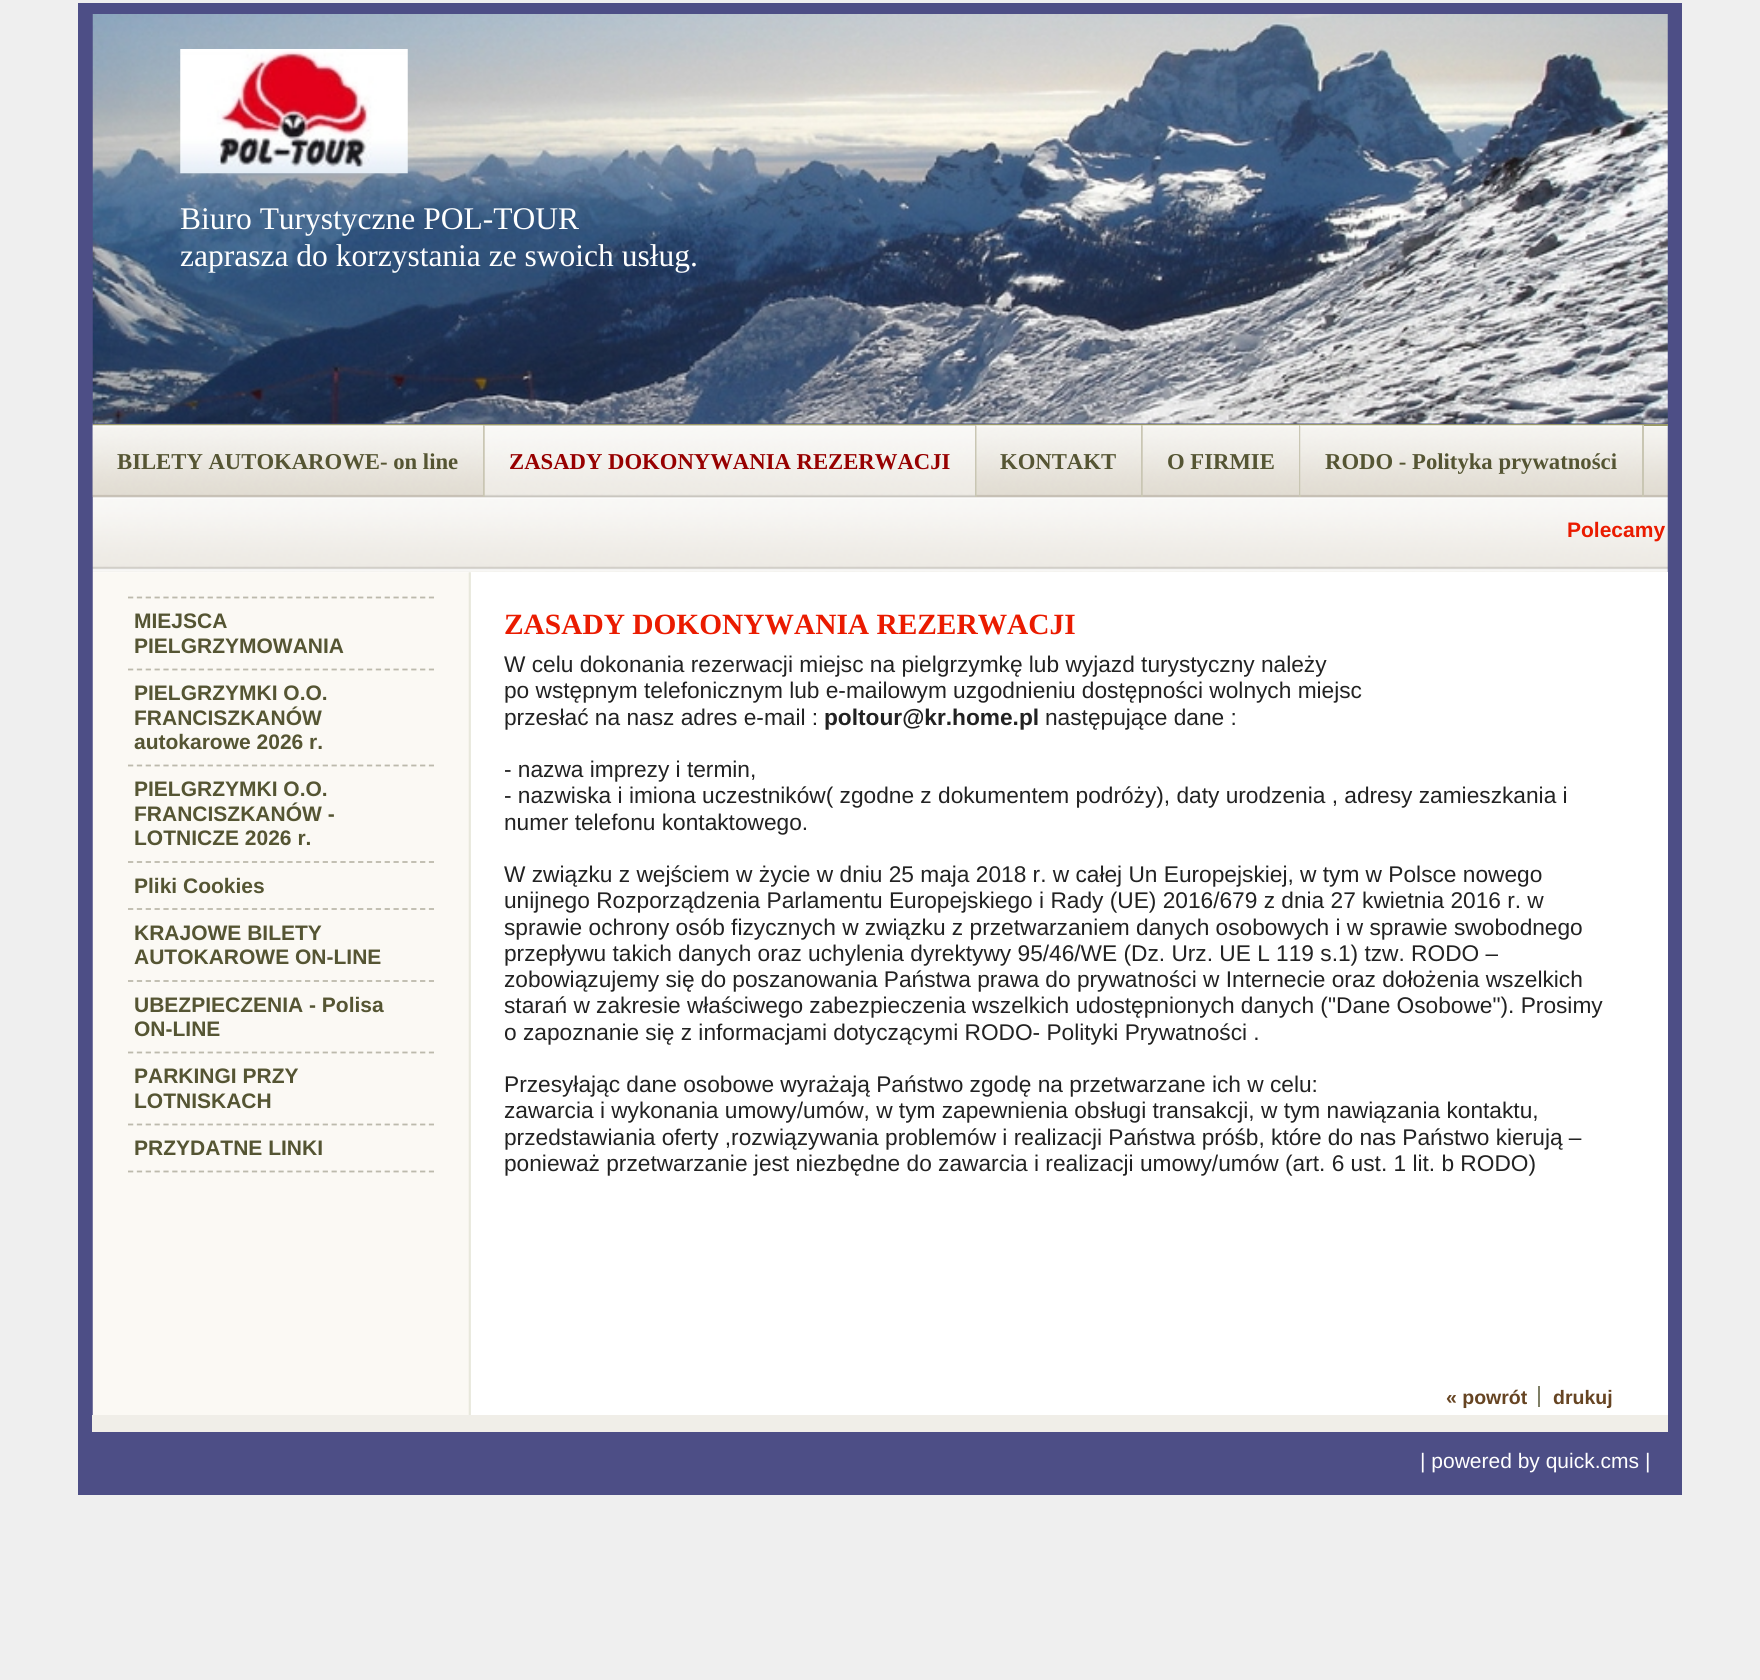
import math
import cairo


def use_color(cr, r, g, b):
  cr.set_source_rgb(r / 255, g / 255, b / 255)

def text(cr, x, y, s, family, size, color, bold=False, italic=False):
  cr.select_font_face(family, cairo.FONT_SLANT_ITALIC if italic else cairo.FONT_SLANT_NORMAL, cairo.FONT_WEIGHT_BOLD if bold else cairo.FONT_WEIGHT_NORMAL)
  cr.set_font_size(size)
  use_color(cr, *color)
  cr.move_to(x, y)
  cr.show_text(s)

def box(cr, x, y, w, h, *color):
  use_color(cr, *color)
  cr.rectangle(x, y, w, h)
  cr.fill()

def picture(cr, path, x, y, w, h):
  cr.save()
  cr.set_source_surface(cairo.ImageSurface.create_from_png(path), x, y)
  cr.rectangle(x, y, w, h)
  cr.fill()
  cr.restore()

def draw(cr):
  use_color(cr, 239, 239, 239)
  cr.paint()
  box(cr, 78, 3, 1604, 1492, 77, 78, 134)
  picture(cr, "img_03.png", 92, 423, 1576, 150)
  box(cr, 93, 423, 1575, 1, 77, 78, 134)
  picture(cr, "img_01.png", 92, 14, 1576, 410)
  picture(cr, "img_02.png", 180, 49, 228, 125)
  box(cr, 93, 424, 1575, 2, 153, 153, 102)
  picture(cr, "img_04.png", 92, 425, 391, 72)
  box(cr, 483, 425, 2, 72, 201, 198, 179)
  picture(cr, "img_05.png", 484, 425, 491, 72)
  box(cr, 975, 425, 2, 72, 201, 198, 179)
  picture(cr, "img_06.png", 976, 425, 165, 70)
  box(cr, 1141, 425, 2, 72, 201, 198, 179)
  picture(cr, "img_07.png", 1142, 425, 157, 70)
  box(cr, 1299, 425, 2, 72, 201, 198, 179)
  picture(cr, "img_08.png", 1300, 425, 342, 70)
  box(cr, 1642, 425, 2, 72, 201, 198, 179)
  box(cr, 93, 572, 1575, 843, 255, 255, 255)
  picture(cr, "img_09.png", 92, 572, 379, 843)
  cr.new_path()
  cr.move_to(128, 1171.5)
  cr.line_to(434, 1171.5)
  use_color(cr, 188, 186, 172)
  cr.set_line_width(1.8)
  cr.set_dash([5.25, 3.6])
  cr.stroke()
  cr.new_path()
  cr.move_to(128, 597.5)
  cr.line_to(434, 597.5)
  cr.stroke()
  cr.new_path()
  cr.move_to(128, 669.5)
  cr.line_to(434, 669.5)
  cr.stroke()
  cr.new_path()
  cr.move_to(128, 765.5)
  cr.line_to(434, 765.5)
  cr.stroke()
  cr.new_path()
  cr.move_to(128, 862)
  cr.line_to(434, 862)
  cr.stroke()
  cr.new_path()
  cr.move_to(128, 909)
  cr.line_to(434, 909)
  cr.stroke()
  cr.new_path()
  cr.move_to(128, 981)
  cr.line_to(434, 981)
  cr.stroke()
  cr.new_path()
  cr.move_to(128, 1052.5)
  cr.line_to(434, 1052.5)
  cr.stroke()
  cr.new_path()
  cr.move_to(128, 1124.5)
  cr.line_to(434, 1124.5)
  cr.stroke()
  box(cr, 1538, 1386, 2, 21, 127, 127, 102)
  box(cr, 92, 1415, 1576, 17, 240, 238, 232)
  text(cr, 180, 229, "Biuro Turystyczne POL-TOUR", "Liberation Serif", 31.5, (255, 255, 255))
  text(cr, 180, 266, "zaprasza do korzystania ze swoich usług.", "Liberation Serif", 31.5, (255, 255, 255))
  text(cr, 117, 469, "BILETY AUTOKAROWE- on line", "Liberation Serif", 22.7, (85, 85, 51), bold=True)
  text(cr, 509, 469, "ZASADY DOKONYWANIA REZERWACJI", "Liberation Serif", 22.7, (151, 0, 0), bold=True)
  text(cr, 1000, 469, "KONTAKT", "Liberation Serif", 22.7, (85, 85, 51), bold=True)
  text(cr, 1167, 469, "O FIRMIE", "Liberation Serif", 22.7, (85, 85, 51), bold=True)
  text(cr, 1325, 469, "RODO - Polityka prywatności", "Liberation Serif", 22.7, (85, 85, 51), bold=True)
  text(cr, 1567, 537, "Polecamy", "Liberation Sans", 21, (234, 27, 0), bold=True)
  text(cr, 134, 628, "MIEJSCA", "Liberation Sans", 21, (85, 85, 51), bold=True)
  text(cr, 134, 653, "PIELGRZYMOWANIA", "Liberation Sans", 21, (85, 85, 51), bold=True)
  text(cr, 134, 700, "PIELGRZYMKI O.O.", "Liberation Sans", 21, (85, 85, 51), bold=True)
  text(cr, 134, 725, "FRANCISZKANÓW", "Liberation Sans", 21, (85, 85, 51), bold=True)
  text(cr, 134, 749, "autokarowe 2026 r.", "Liberation Sans", 21, (85, 85, 51), bold=True)
  text(cr, 134, 796, "PIELGRZYMKI O.O.", "Liberation Sans", 21, (85, 85, 51), bold=True)
  text(cr, 134, 821, "FRANCISZKANÓW -", "Liberation Sans", 21, (85, 85, 51), bold=True)
  text(cr, 134, 845, "LOTNICZE 2026 r.", "Liberation Sans", 21, (85, 85, 51), bold=True)
  text(cr, 134, 893, "Pliki Cookies", "Liberation Sans", 21, (85, 85, 51), bold=True)
  text(cr, 134, 940, "KRAJOWE BILETY", "Liberation Sans", 21, (85, 85, 51), bold=True)
  text(cr, 134, 964, "AUTOKAROWE ON-LINE", "Liberation Sans", 21, (85, 85, 51), bold=True)
  text(cr, 134, 1012, "UBEZPIECZENIA - Polisa", "Liberation Sans", 21, (85, 85, 51), bold=True)
  text(cr, 134, 1036, "ON-LINE", "Liberation Sans", 21, (85, 85, 51), bold=True)
  text(cr, 134, 1083, "PARKINGI PRZY", "Liberation Sans", 21, (85, 85, 51), bold=True)
  text(cr, 134, 1108, "LOTNISKACH", "Liberation Sans", 21, (85, 85, 51), bold=True)
  text(cr, 134, 1155, "PRZYDATNE LINKI", "Liberation Sans", 21, (85, 85, 51), bold=True)
  text(cr, 504, 634, "ZASADY DOKONYWANIA REZERWACJI", "Liberation Serif", 29.4, (234, 27, 0), bold=True)
  text(cr, 504, 672, "W celu dokonania rezerwacji miejsc na pielgrzymkę lub wyjazd turystyczny należy", "Liberation Sans", 22.7, (34, 34, 34))
  text(cr, 504, 698, "po wstępnym telefonicznym lub e-mailowym uzgodnieniu dostępności wolnych miejsc", "Liberation Sans", 22.7, (34, 34, 34))
  text(cr, 504, 725, "przesłać na nasz adres e-mail :", "Liberation Sans", 22.7, (34, 34, 34))
  text(cr, 824, 725, "poltour@kr.home.pl", "Liberation Sans", 22.7, (34, 34, 34), bold=True)
  text(cr, 1045, 725, "następujące dane :", "Liberation Sans", 22.7, (34, 34, 34))
  text(cr, 504, 777, "- nazwa imprezy i termin,", "Liberation Sans", 22.7, (34, 34, 34))
  text(cr, 504, 803, "- nazwiska i imiona uczestników( zgodne z dokumentem podróży), daty urodzenia , adresy zamieszkania i", "Liberation Sans", 22.7, (34, 34, 34))
  text(cr, 504, 830, "numer telefonu kontaktowego.", "Liberation Sans", 22.7, (34, 34, 34))
  text(cr, 504, 882, "W związku z wejściem w życie w dniu 25 maja 2018 r. w całej Un Europejskiej, w tym w Polsce nowego", "Liberation Sans", 22.7, (34, 34, 34))
  text(cr, 504, 908, "unijnego Rozporządzenia Parlamentu Europejskiego i Rady (UE) 2016/679 z dnia 27 kwietnia 2016 r. w", "Liberation Sans", 22.7, (34, 34, 34))
  text(cr, 504, 935, "sprawie ochrony osób fizycznych w związku z przetwarzaniem danych osobowych i w sprawie swobodnego", "Liberation Sans", 22.7, (34, 34, 34))
  text(cr, 504, 961, "przepływu takich danych oraz uchylenia dyrektywy 95/46/WE (Dz. Urz. UE L 119 s.1) tzw. RODO –", "Liberation Sans", 22.7, (34, 34, 34))
  text(cr, 504, 987, "zobowiązujemy się do poszanowania Państwa prawa do prywatności w Internecie oraz dołożenia wszelkich", "Liberation Sans", 22.7, (34, 34, 34))
  text(cr, 504, 1013, "starań w zakresie właściwego zabezpieczenia wszelkich udostępnionych danych (\"Dane Osobowe\"). Prosimy", "Liberation Sans", 22.7, (34, 34, 34))
  text(cr, 504, 1040, "o zapoznanie się z informacjami dotyczącymi RODO- Polityki Prywatności .", "Liberation Sans", 22.7, (34, 34, 34))
  text(cr, 504, 1092, "Przesyłając dane osobowe wyrażają Państwo zgodę na przetwarzane ich w celu:", "Liberation Sans", 22.7, (34, 34, 34))
  text(cr, 504, 1118, "zawarcia i wykonania umowy/umów, w tym zapewnienia obsługi transakcji, w tym nawiązania kontaktu,", "Liberation Sans", 22.7, (34, 34, 34))
  text(cr, 504, 1145, "przedstawiania oferty ,rozwiązywania problemów i realizacji Państwa próśb, które do nas Państwo kierują –", "Liberation Sans", 22.7, (34, 34, 34))
  text(cr, 504, 1171, "ponieważ przetwarzanie jest niezbędne do zawarcia i realizacji umowy/umów (art. 6 ust. 1 lit. b RODO)", "Liberation Sans", 22.7, (34, 34, 34))
  text(cr, 1446, 1404, "« powrót", "Liberation Sans", 19.5, (102, 68, 34), bold=True)
  text(cr, 1553, 1404, "drukuj", "Liberation Sans", 19.5, (102, 68, 34), bold=True)
  text(cr, 1420, 1468, "| powered by quick.cms |", "Liberation Sans", 21, (255, 255, 255))


surface = cairo.ImageSurface(cairo.FORMAT_RGB24, 1760, 1680)
cr = cairo.Context(surface)
options = cairo.FontOptions()
options.set_hint_metrics(cairo.HINT_METRICS_OFF)
options.set_hint_style(cairo.HINT_STYLE_NONE)
cr.set_font_options(options)
cr.set_miter_limit(4)
draw(cr)
surface.write_to_png("out.png")
